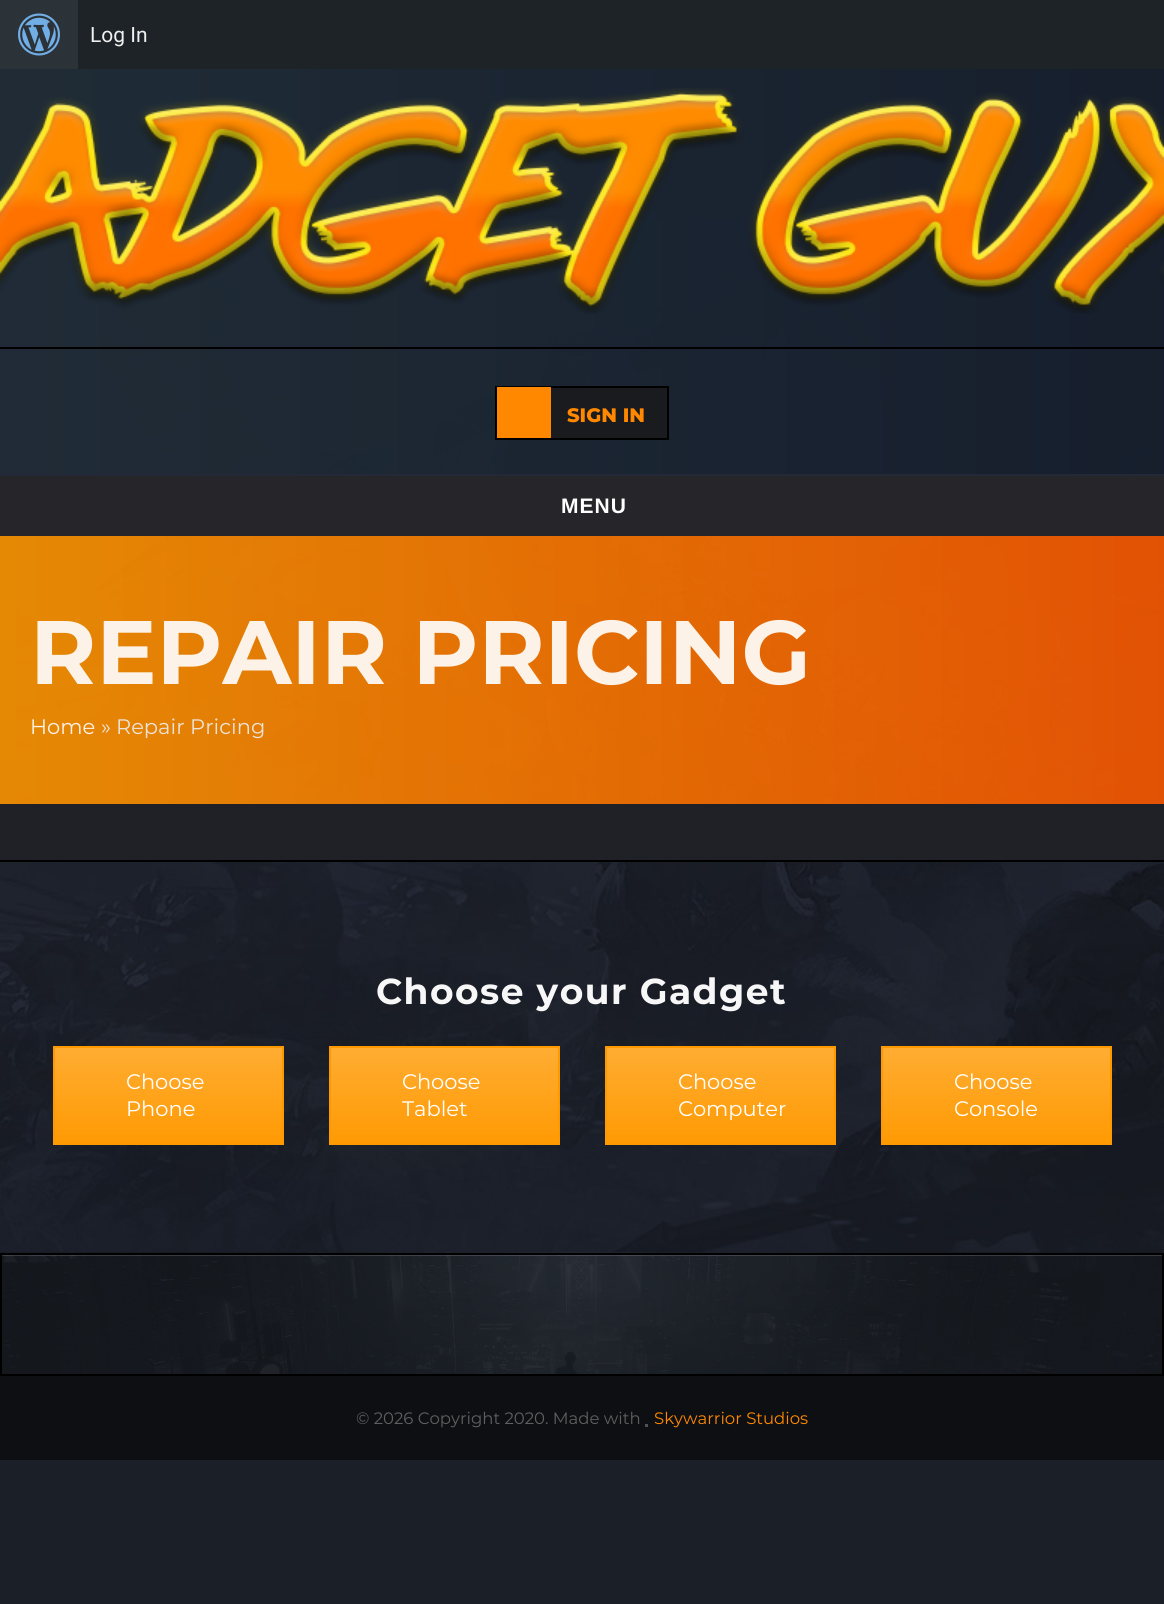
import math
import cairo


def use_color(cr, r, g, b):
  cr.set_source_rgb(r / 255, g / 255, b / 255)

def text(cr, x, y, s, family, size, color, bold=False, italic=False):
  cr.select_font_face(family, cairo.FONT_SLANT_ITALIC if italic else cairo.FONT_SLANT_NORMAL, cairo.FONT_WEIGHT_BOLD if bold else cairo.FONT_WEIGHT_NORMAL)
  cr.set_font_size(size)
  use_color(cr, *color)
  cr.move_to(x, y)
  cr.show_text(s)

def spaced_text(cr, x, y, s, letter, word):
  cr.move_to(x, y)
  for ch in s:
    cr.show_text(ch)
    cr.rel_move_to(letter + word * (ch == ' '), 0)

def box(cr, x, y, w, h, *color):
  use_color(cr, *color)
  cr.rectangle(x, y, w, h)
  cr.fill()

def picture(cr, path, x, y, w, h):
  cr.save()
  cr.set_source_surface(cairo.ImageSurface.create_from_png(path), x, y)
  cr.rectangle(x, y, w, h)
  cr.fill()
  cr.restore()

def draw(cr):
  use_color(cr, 27, 31, 40)
  cr.paint()
  picture(cr, "img_01.png", 0, 219, 1164, 1034)
  box(cr, 78, 0, 1086, 69, 29, 35, 39)
  box(cr, 0, 0, 78, 69, 44, 51, 56)
  picture(cr, "img_02.png", 18, 13, 42, 43)
  gradient = cairo.LinearGradient(0, 272, 1164, 271)
  gradient.add_color_stop_rgba(0, 0.125, 0.173, 0.216, 0.94)
  gradient.add_color_stop_rgba(1, 0.086, 0.118, 0.176, 0.98)
  cr.set_source(gradient)
  cr.rectangle(0, 69, 1164, 405)
  cr.fill()
  picture(cr, "img_03.png", 0, 88, 1164, 226)
  box(cr, 0, 347, 1164, 2, 0, 0, 0)
  box(cr, 551, 388, 116, 50, 26, 27, 31)
  cr.rectangle(496, 387, 172, 52)
  use_color(cr, 0, 0, 0)
  cr.stroke()
  box(cr, 497, 387, 54, 51, 255, 136, 0)
  box(cr, 0, 474, 1164, 2, 36, 41, 55)
  box(cr, 0, 476, 1164, 60, 38, 38, 42)
  box(cr, 0, 804, 1164, 56, 32, 33, 38)
  box(cr, 0, 860, 1164, 2, 0, 0, 0)
  gradient = cairo.LinearGradient(168, 1047, 168, 1143)
  gradient.add_color_stop_rgba(0, 1, 0.678, 0.2, 1)
  gradient.add_color_stop_rgba(1, 1, 0.604, 0.012, 1)
  cr.set_source(gradient)
  cr.rectangle(55, 1048, 227, 95)
  cr.fill()
  cr.rectangle(54, 1047, 229, 97)
  use_color(cr, 255, 153, 0)
  cr.stroke()
  gradient = cairo.LinearGradient(444, 1047, 444, 1143)
  gradient.add_color_stop_rgba(0, 1, 0.678, 0.2, 1)
  gradient.add_color_stop_rgba(1, 1, 0.604, 0.012, 1)
  cr.set_source(gradient)
  cr.rectangle(331, 1048, 227, 95)
  cr.fill()
  cr.rectangle(330, 1047, 229, 97)
  use_color(cr, 255, 153, 0)
  cr.stroke()
  gradient = cairo.LinearGradient(720, 1047, 720, 1143)
  gradient.add_color_stop_rgba(0, 1, 0.678, 0.2, 1)
  gradient.add_color_stop_rgba(1, 1, 0.604, 0.012, 1)
  cr.set_source(gradient)
  cr.rectangle(607, 1048, 227, 95)
  cr.fill()
  cr.rectangle(606, 1047, 229, 97)
  use_color(cr, 255, 153, 0)
  cr.stroke()
  gradient = cairo.LinearGradient(996, 1047, 996, 1143)
  gradient.add_color_stop_rgba(0, 1, 0.678, 0.2, 1)
  gradient.add_color_stop_rgba(1, 1, 0.604, 0.012, 1)
  cr.set_source(gradient)
  cr.rectangle(883, 1048, 227, 95)
  cr.fill()
  cr.rectangle(882, 1047, 229, 97)
  use_color(cr, 255, 153, 0)
  cr.stroke()
  picture(cr, "img_04.png", 2, 1252, 1160, 122)
  cr.set_source_rgba(1, 1, 1, 0.15)
  cr.rectangle(2, 1255, 1161, 1)
  cr.fill()
  cr.rectangle(1, 1254, 1162, 121)
  use_color(cr, 0, 0, 0)
  cr.stroke()
  box(cr, 0, 1376, 1164, 84, 13, 15, 19)
  box(cr, 645, 1424, 3, 3, 82, 82, 83)
  text(cr, 90, 42, "Log In", "Roboto", 21, (240, 240, 241))
  text(cr, 567, 422, "SIGN IN", "Montserrat ExtraBold", 19.5, (255, 136, 0))
  cr.select_font_face("Liberation Sans", cairo.FONT_SLANT_NORMAL, cairo.FONT_WEIGHT_BOLD)
  cr.set_font_size(21)
  use_color(cr, 255, 255, 255)
  spaced_text(cr, 561, 513, "MENU", 1, 0)
  text(cr, 30, 684, "REPAIR PRICING", "Montserrat", 90, (252, 242, 231), bold=True)
  text(cr, 30, 734, "Home", "Montserrat", 21, (252, 242, 231))
  text(cr, 101, 734, "»", "Montserrat", 21, (237, 227, 215))
  text(cr, 116, 734, "Repair Pricing", "Montserrat", 21, (237, 227, 215))
  cr.select_font_face("Montserrat", cairo.FONT_SLANT_NORMAL, cairo.FONT_WEIGHT_BOLD)
  cr.set_font_size(36)
  use_color(cr, 247, 247, 247)
  spaced_text(cr, 376, 1004, "Choose your Gadget", 1.5, 0)
  text(cr, 126, 1089, "Choose", "Montserrat", 21, (255, 255, 255))
  text(cr, 126, 1116, "Phone", "Montserrat", 21, (255, 255, 255))
  text(cr, 402, 1089, "Choose", "Montserrat", 21, (255, 255, 255))
  text(cr, 402, 1116, "Tablet", "Montserrat", 21, (255, 255, 255))
  text(cr, 678, 1089, "Choose", "Montserrat", 21, (255, 255, 255))
  text(cr, 678, 1116, "Computer", "Montserrat", 21, (255, 255, 255))
  text(cr, 954, 1089, "Choose", "Montserrat", 21, (255, 255, 255))
  text(cr, 954, 1116, "Console", "Montserrat", 21, (255, 255, 255))
  text(cr, 356, 1424, "© 2026 Copyright 2020. Made with", "Montserrat", 16.5, (95, 95, 95))
  text(cr, 654, 1424, "Skywarrior Studios", "Montserrat", 16.5, (255, 136, 0))


surface = cairo.ImageSurface(cairo.FORMAT_RGB24, 1164, 1604)
cr = cairo.Context(surface)
options = cairo.FontOptions()
options.set_hint_metrics(cairo.HINT_METRICS_OFF)
options.set_hint_style(cairo.HINT_STYLE_NONE)
cr.set_font_options(options)
cr.set_miter_limit(4)
draw(cr)
surface.write_to_png("out.png")
